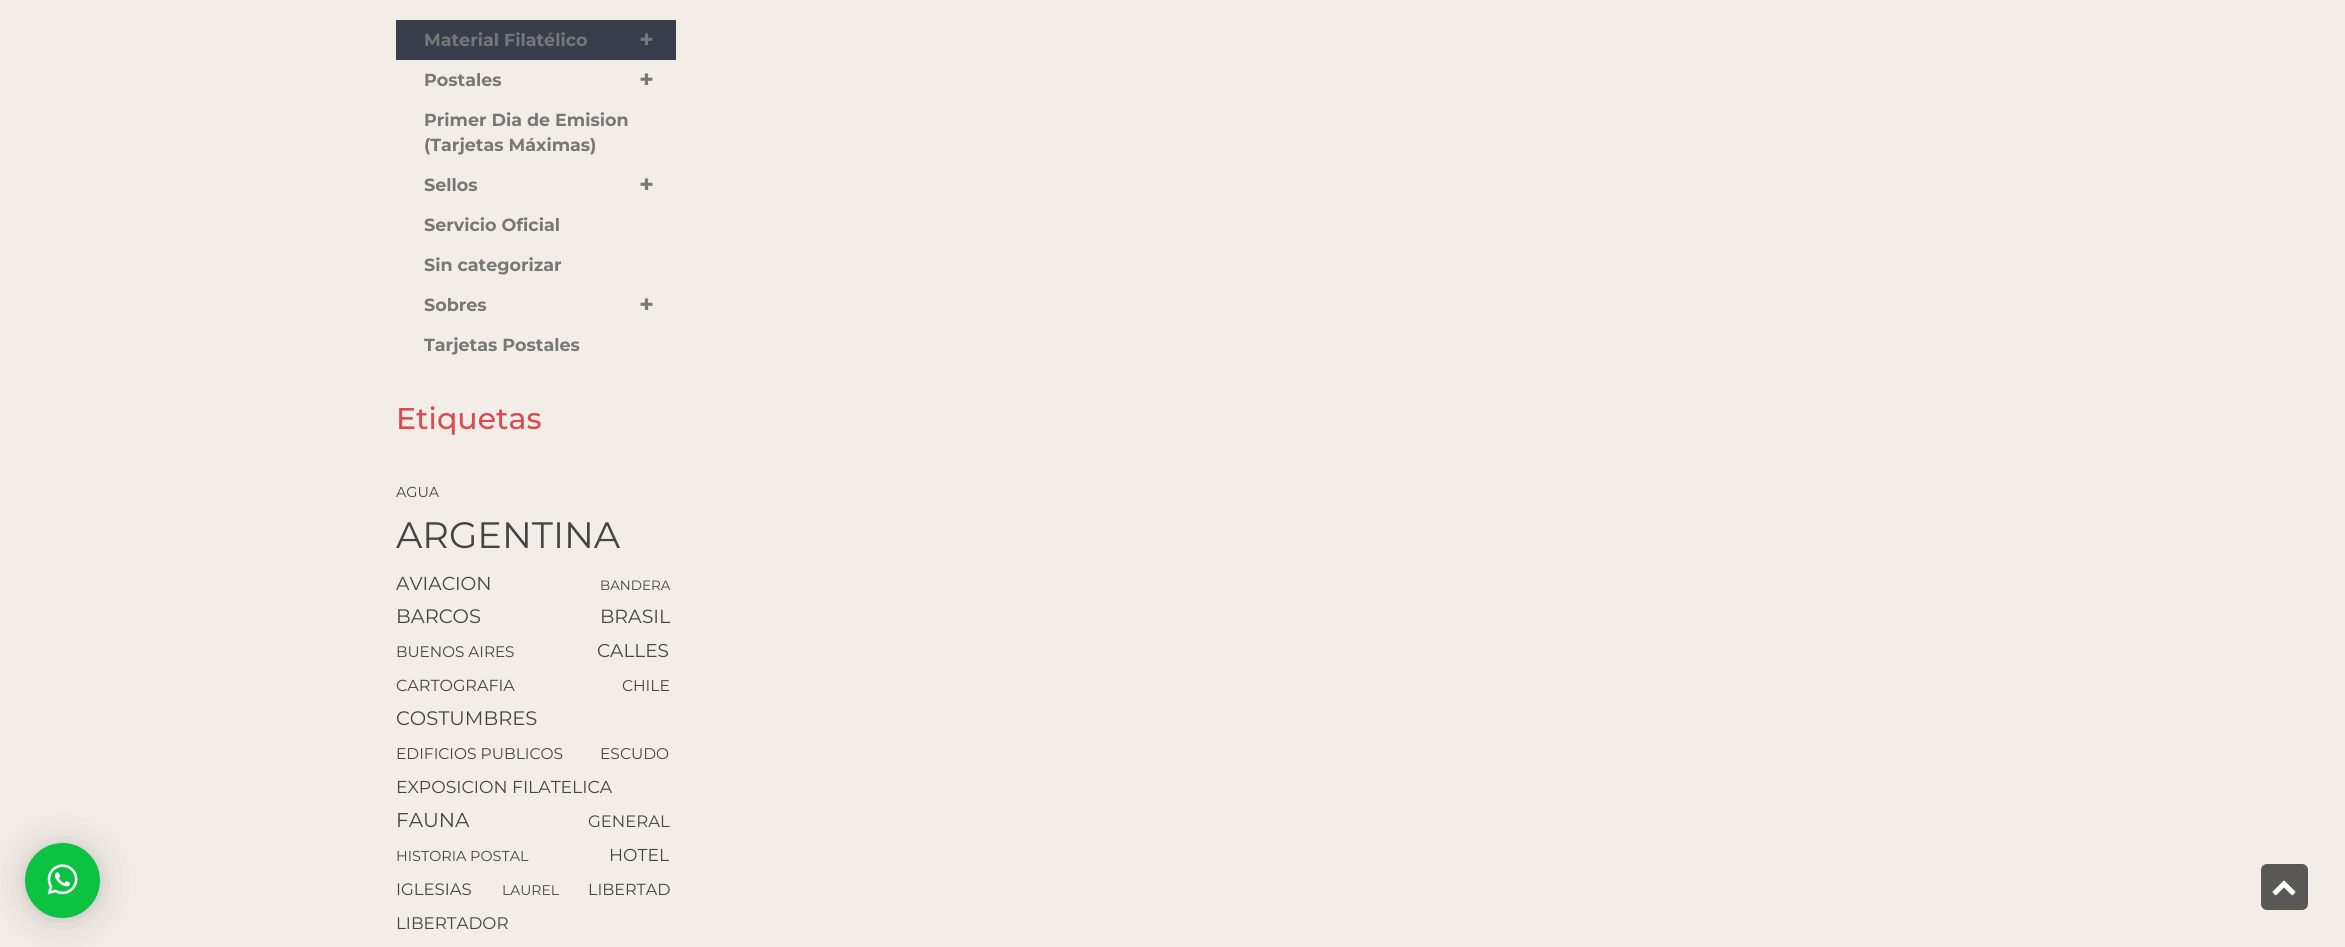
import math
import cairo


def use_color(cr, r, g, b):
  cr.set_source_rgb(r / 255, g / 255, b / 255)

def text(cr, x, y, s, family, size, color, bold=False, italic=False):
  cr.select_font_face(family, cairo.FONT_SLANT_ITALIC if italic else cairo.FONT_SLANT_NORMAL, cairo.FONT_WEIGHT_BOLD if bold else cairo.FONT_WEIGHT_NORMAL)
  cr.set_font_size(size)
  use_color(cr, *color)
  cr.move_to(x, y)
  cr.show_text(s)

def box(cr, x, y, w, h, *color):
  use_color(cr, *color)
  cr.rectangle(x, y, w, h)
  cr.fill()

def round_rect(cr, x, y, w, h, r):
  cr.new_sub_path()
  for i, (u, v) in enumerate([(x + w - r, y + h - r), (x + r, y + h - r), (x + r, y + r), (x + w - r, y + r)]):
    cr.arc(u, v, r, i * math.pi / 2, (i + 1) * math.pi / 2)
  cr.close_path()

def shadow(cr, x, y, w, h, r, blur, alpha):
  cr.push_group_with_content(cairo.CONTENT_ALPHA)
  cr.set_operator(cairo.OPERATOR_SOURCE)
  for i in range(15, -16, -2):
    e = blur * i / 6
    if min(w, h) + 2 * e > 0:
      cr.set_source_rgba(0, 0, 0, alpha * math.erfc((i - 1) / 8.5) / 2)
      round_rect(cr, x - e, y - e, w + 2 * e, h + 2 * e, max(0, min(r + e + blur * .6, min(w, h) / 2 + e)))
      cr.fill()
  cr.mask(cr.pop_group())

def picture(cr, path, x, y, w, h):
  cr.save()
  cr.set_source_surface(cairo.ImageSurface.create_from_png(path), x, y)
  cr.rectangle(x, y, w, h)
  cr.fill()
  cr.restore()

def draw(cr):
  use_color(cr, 242, 237, 231)
  cr.paint()
  use_color(cr, 0, 0, 0)
  shadow(cr, 25, 845, 75, 75, 37.5, 20, 0.16)
  shadow(cr, 25, 844, 75, 75, 37.5, 4, 0.06)
  use_color(cr, 12, 194, 67)
  cr.arc(62.5, 880.5, 37.5, 0, 2 * math.pi)
  cr.fill()
  picture(cr, "img_01.png", 47, 864, 31, 31)
  box(cr, 396, 20, 280, 40, 56, 63, 74)
  use_color(cr, 89, 88, 87)
  round_rect(cr, 2261, 864, 47, 46, 6)
  cr.fill()
  picture(cr, "img_02.png", 2272, 880, 24, 16)
  text(cr, 424, 46, "Material Filatélico", "Montserrat", 17.5, (119, 119, 119), bold=True)
  text(cr, 639, 48, "+", "Montserrat", 25, (119, 119, 119), bold=True)
  text(cr, 424, 86, "Postales", "Montserrat", 17.5, (119, 119, 119), bold=True)
  text(cr, 639, 88, "+", "Montserrat", 25, (119, 119, 119), bold=True)
  text(cr, 424, 126, "Primer Dia de Emision", "Montserrat", 17.5, (119, 119, 119), bold=True)
  text(cr, 424, 151, "(Tarjetas Máximas)", "Montserrat", 17.5, (119, 119, 119), bold=True)
  text(cr, 424, 191, "Sellos", "Montserrat", 17.5, (119, 119, 119), bold=True)
  text(cr, 639, 193, "+", "Montserrat", 25, (119, 119, 119), bold=True)
  text(cr, 424, 231, "Servicio Oficial", "Montserrat", 17.5, (119, 119, 119), bold=True)
  text(cr, 424, 271, "Sin categorizar", "Montserrat", 17.5, (119, 119, 119), bold=True)
  text(cr, 424, 311, "Sobres", "Montserrat", 17.5, (119, 119, 119), bold=True)
  text(cr, 639, 313, "+", "Montserrat", 25, (119, 119, 119), bold=True)
  text(cr, 424, 351, "Tarjetas Postales", "Montserrat", 17.5, (119, 119, 119), bold=True)
  text(cr, 396, 429, "Etiquetas", "Montserrat Medium", 30, (218, 75, 84))
  text(cr, 396, 497, "AGUA", "Montserrat", 14.4, (68, 68, 68))
  text(cr, 396, 548, "ARGENTINA", "Montserrat", 36.75, (68, 68, 68))
  text(cr, 396, 590, "AVIACION", "Montserrat", 18.75, (68, 68, 68))
  text(cr, 600, 590, "BANDERA", "Montserrat", 13.5, (68, 68, 68))
  text(cr, 396, 623, "BARCOS", "Montserrat", 19.5, (68, 68, 68))
  text(cr, 600, 623, "BRASIL", "Montserrat", 19, (68, 68, 68))
  text(cr, 396, 657, "BUENOS AIRES", "Montserrat", 15.25, (68, 68, 68))
  text(cr, 597, 657, "CALLES", "Montserrat", 18.5, (68, 68, 68))
  text(cr, 396, 691, "CARTOGRAFIA", "Montserrat", 16, (68, 68, 68))
  text(cr, 622, 691, "CHILE", "Montserrat", 15.5, (68, 68, 68))
  text(cr, 396, 725, "COSTUMBRES", "Montserrat", 19.5, (68, 68, 68))
  text(cr, 396, 759, "EDIFICIOS PUBLICOS", "Montserrat", 15.5, (68, 68, 68))
  text(cr, 600, 759, "ESCUDO", "Montserrat", 15.5, (68, 68, 68))
  text(cr, 396, 793, "EXPOSICION FILATELICA", "Montserrat", 17.25, (68, 68, 68))
  text(cr, 396, 827, "FAUNA", "Montserrat", 20, (68, 68, 68))
  text(cr, 588, 827, "GENERAL", "Montserrat", 16.5, (68, 68, 68))
  text(cr, 396, 861, "HISTORIA POSTAL", "Montserrat", 14.4, (68, 68, 68))
  text(cr, 609, 861, "HOTEL", "Montserrat", 17.25, (68, 68, 68))
  text(cr, 396, 895, "IGLESIAS", "Montserrat", 16.5, (68, 68, 68))
  text(cr, 502, 895, "LAUREL", "Montserrat", 14, (68, 68, 68))
  text(cr, 588, 895, "LIBERTAD", "Montserrat", 16, (68, 68, 68))
  text(cr, 396, 929, "LIBERTADOR", "Montserrat", 16.75, (68, 68, 68))


surface = cairo.ImageSurface(cairo.FORMAT_RGB24, 2345, 947)
cr = cairo.Context(surface)
options = cairo.FontOptions()
options.set_hint_metrics(cairo.HINT_METRICS_OFF)
options.set_hint_style(cairo.HINT_STYLE_NONE)
cr.set_font_options(options)
cr.set_miter_limit(4)
draw(cr)
surface.write_to_png("out.png")
